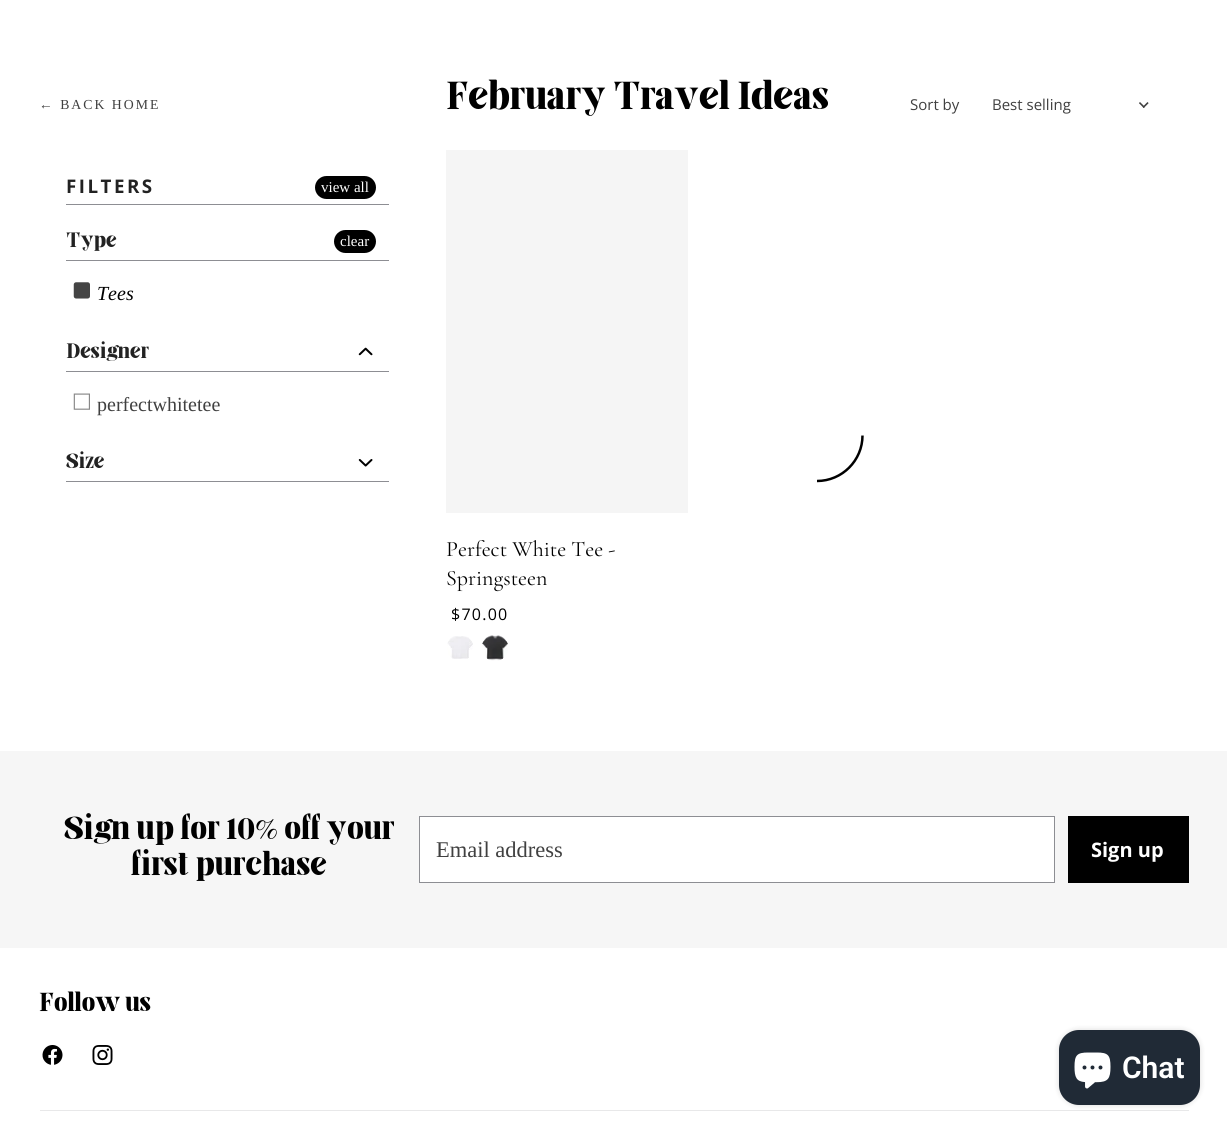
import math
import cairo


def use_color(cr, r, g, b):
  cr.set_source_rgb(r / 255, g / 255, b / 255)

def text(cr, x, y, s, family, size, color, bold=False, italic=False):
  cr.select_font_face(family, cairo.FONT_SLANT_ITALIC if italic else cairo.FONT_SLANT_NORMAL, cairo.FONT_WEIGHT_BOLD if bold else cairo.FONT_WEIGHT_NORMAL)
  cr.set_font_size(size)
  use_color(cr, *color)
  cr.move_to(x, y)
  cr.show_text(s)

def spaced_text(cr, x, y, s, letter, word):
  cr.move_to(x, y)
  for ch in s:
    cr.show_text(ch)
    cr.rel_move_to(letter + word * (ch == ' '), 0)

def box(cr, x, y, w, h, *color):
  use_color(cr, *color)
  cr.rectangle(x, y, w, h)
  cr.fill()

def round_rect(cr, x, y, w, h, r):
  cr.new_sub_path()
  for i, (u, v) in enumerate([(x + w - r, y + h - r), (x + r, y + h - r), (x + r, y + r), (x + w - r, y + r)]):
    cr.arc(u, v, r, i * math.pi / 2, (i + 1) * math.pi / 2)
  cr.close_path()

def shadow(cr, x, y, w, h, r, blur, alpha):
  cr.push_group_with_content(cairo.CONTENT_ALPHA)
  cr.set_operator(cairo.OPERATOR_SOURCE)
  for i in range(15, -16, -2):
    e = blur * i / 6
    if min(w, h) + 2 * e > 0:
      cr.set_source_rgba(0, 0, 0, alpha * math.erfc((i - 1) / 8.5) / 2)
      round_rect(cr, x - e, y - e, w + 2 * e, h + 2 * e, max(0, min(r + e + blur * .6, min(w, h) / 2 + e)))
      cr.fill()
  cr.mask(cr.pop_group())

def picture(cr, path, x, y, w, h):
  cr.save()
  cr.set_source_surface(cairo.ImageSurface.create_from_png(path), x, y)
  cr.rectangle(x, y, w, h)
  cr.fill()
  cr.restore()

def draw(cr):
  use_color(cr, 255, 255, 255)
  cr.paint()
  picture(cr, "img_01.png", 1139, 102, 10, 6)
  box(cr, 66, 204, 323, 1, 141, 142, 147)
  use_color(cr, 0, 0, 0)
  round_rect(cr, 315, 176, 61, 23, 11.5)
  cr.fill()
  box(cr, 66, 260, 323, 1, 141, 142, 147)
  use_color(cr, 0, 0, 0)
  round_rect(cr, 334, 230, 42, 23, 11.5)
  cr.fill()
  picture(cr, "img_02.png", 73, 282, 17, 17)
  box(cr, 66, 371, 323, 1, 141, 142, 147)
  picture(cr, "img_03.png", 358, 347, 15, 9)
  picture(cr, "img_04.png", 73, 393, 17, 17)
  box(cr, 66, 481, 323, 1, 141, 142, 147)
  picture(cr, "img_05.png", 358, 459, 15, 8)
  cr.new_path()
  cr.move_to(862.5, 435.5)
  cr.curve_to(862.5, 460.5, 842, 481, 817, 481)
  use_color(cr, 0, 0, 0)
  cr.set_line_width(2.5)
  cr.stroke()
  box(cr, 446, 150, 242, 363, 245, 245, 245)
  picture(cr, "img_06.png", 447, 636, 26, 23)
  picture(cr, "img_07.png", 482, 635, 26, 26)
  box(cr, 0, 751, 1227, 197, 246, 246, 246)
  use_color(cr, 255, 255, 255)
  cr.rectangle(419.5, 816.5, 635, 66)
  cr.fill_preserve()
  use_color(cr, 141, 142, 147)
  cr.set_line_width(1)
  cr.stroke()
  box(cr, 1068, 816, 121, 67, 0, 0, 0)
  box(cr, 40, 1110, 1149, 1, 232, 232, 233)
  picture(cr, "img_08.png", 42, 1045, 21, 20)
  picture(cr, "img_09.png", 92, 1045, 21, 20)
  use_color(cr, 0, 0, 0)
  shadow(cr, 1059, 1030, 141, 75, 20, 3, 0.15)
  use_color(cr, 32, 42, 54)
  round_rect(cr, 1059, 1030, 141, 75, 20)
  cr.fill()
  picture(cr, "img_10.png", 1074, 1052, 37, 37)
  cr.select_font_face("Liberation Serif")
  cr.set_font_size(13.75)
  use_color(cr, 64, 64, 64)
  spaced_text(cr, 39, 109, "← BACK HOME", 2, 0)
  text(cr, 446, 109, "February Travel Ideas", "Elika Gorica", 37.5, (0, 0, 0))
  text(cr, 910, 110, "Sort by", "Open Sans", 15, (64, 64, 64))
  text(cr, 992, 110, "Best selling", "Open Sans", 15, (64, 64, 64))
  cr.select_font_face("Open Sans", cairo.FONT_SLANT_NORMAL, cairo.FONT_WEIGHT_BOLD)
  cr.set_font_size(18.75)
  use_color(cr, 34, 34, 34)
  spaced_text(cr, 66, 193, "FILTERS", 2.5, 0)
  text(cr, 321, 192, "view all", "Liberation Serif", 15, (255, 255, 255))
  text(cr, 66, 247, "Type", "Elika Gorica", 20, (34, 34, 34))
  text(cr, 340, 246, "clear", "Liberation Serif", 15, (255, 255, 255))
  text(cr, 97, 300, "Tees", "Liberation Serif", 20, (0, 0, 0), italic=True)
  text(cr, 66, 358, "Designer", "Elika Gorica", 20, (34, 34, 34))
  text(cr, 97, 411, "perfectwhitetee", "Liberation Serif", 20, (64, 64, 64))
  text(cr, 66, 468, "Size", "Elika Gorica", 20, (34, 34, 34))
  text(cr, 446, 556, "Perfect White Tee -", "Cormorant Garamond", 22, (0, 0, 0))
  text(cr, 446, 585, "Springsteen", "Cormorant Garamond", 22, (0, 0, 0))
  cr.select_font_face("Open Sans")
  cr.set_font_size(16)
  spaced_text(cr, 451, 620, "$70.00", 1.25, 0)
  text(cr, 64, 839, "Sign up for 10% off your", "Elika Gorica", 31, (0, 0, 0))
  text(cr, 131, 875, "first purchase", "Elika Gorica", 31, (0, 0, 0))
  text(cr, 436, 857, "Email address", "Liberation Serif", 22.5, (64, 64, 64))
  text(cr, 1091, 857, "Sign up", "Open Sans", 20, (255, 255, 255), bold=True)
  text(cr, 39, 1011, "Follow us", "Elika Gorica", 25, (0, 0, 0))
  text(cr, 1122, 1078, "Chat", "Roboto SemiBold", 30, (255, 255, 255))


surface = cairo.ImageSurface(cairo.FORMAT_RGB24, 1227, 1131)
cr = cairo.Context(surface)
options = cairo.FontOptions()
options.set_hint_metrics(cairo.HINT_METRICS_OFF)
options.set_hint_style(cairo.HINT_STYLE_NONE)
cr.set_font_options(options)
cr.set_miter_limit(4)
draw(cr)
surface.write_to_png("out.png")
